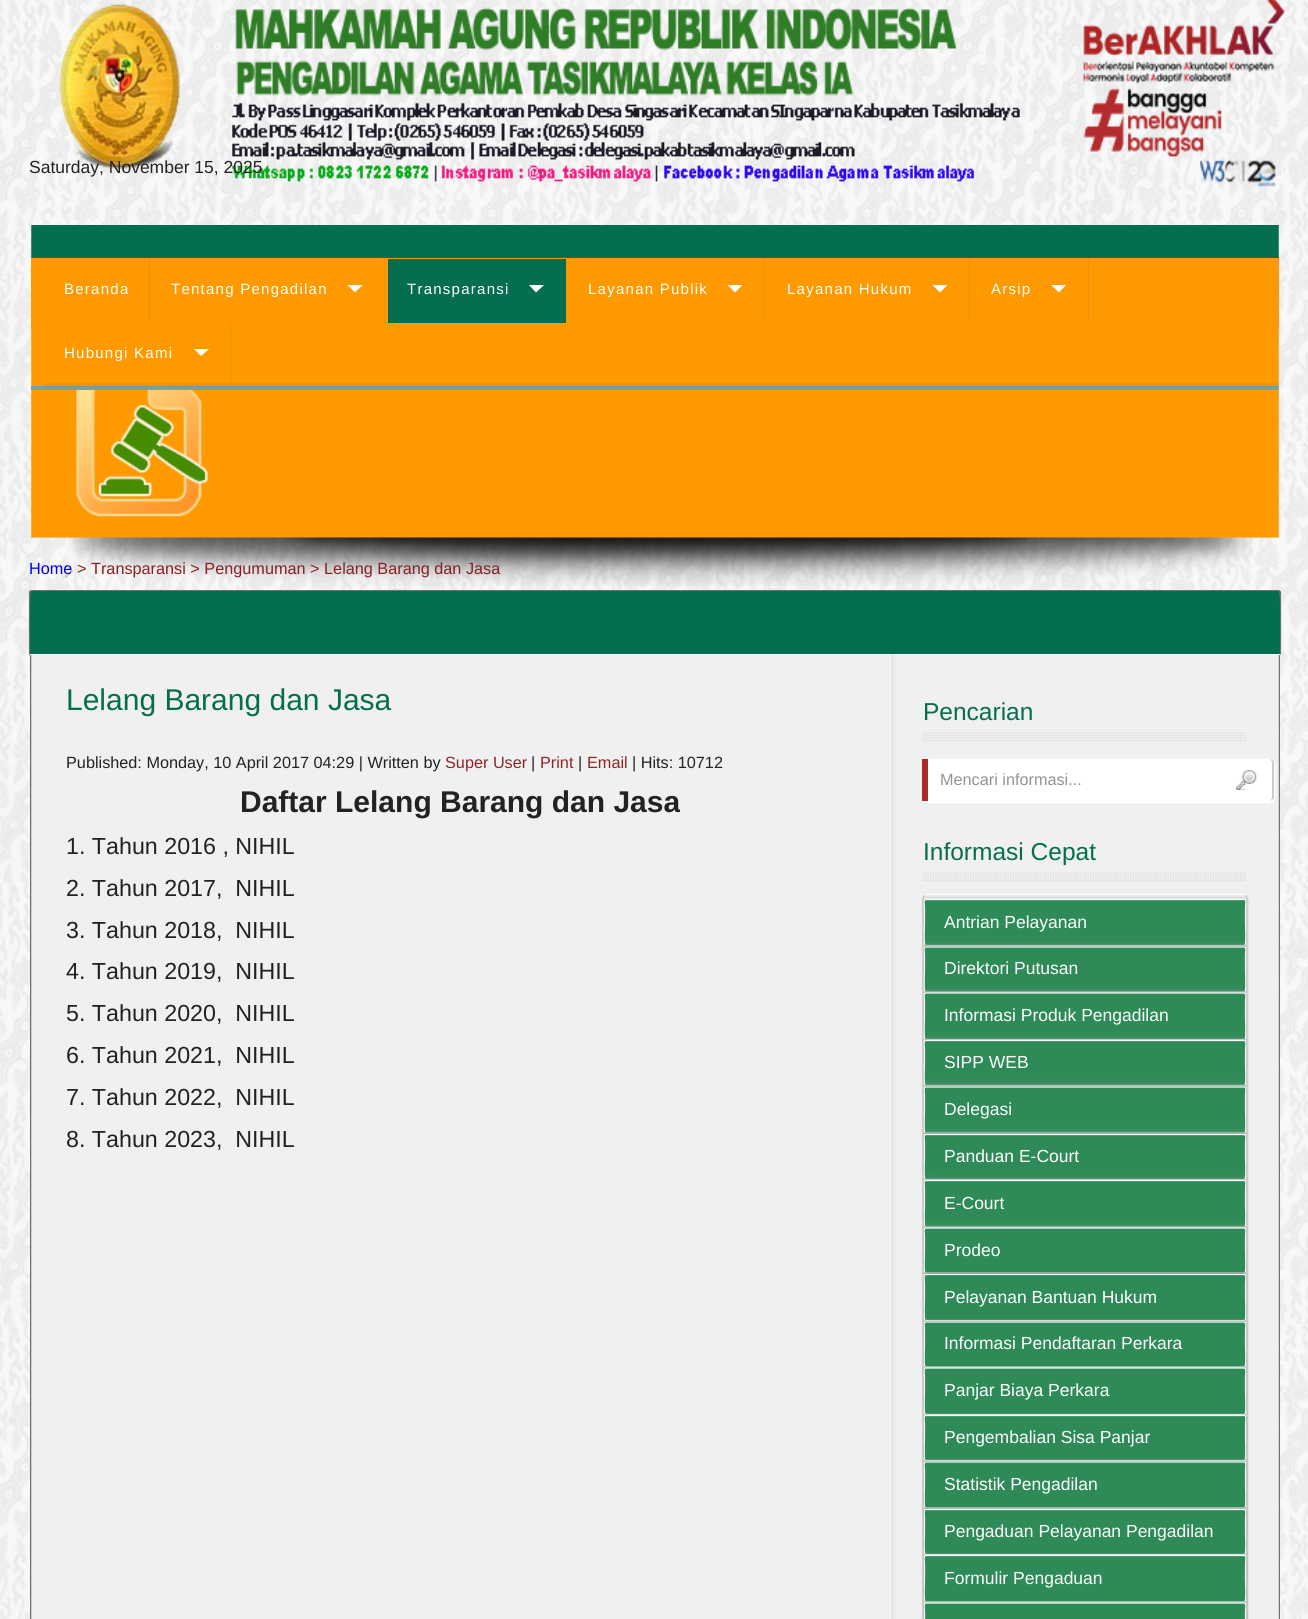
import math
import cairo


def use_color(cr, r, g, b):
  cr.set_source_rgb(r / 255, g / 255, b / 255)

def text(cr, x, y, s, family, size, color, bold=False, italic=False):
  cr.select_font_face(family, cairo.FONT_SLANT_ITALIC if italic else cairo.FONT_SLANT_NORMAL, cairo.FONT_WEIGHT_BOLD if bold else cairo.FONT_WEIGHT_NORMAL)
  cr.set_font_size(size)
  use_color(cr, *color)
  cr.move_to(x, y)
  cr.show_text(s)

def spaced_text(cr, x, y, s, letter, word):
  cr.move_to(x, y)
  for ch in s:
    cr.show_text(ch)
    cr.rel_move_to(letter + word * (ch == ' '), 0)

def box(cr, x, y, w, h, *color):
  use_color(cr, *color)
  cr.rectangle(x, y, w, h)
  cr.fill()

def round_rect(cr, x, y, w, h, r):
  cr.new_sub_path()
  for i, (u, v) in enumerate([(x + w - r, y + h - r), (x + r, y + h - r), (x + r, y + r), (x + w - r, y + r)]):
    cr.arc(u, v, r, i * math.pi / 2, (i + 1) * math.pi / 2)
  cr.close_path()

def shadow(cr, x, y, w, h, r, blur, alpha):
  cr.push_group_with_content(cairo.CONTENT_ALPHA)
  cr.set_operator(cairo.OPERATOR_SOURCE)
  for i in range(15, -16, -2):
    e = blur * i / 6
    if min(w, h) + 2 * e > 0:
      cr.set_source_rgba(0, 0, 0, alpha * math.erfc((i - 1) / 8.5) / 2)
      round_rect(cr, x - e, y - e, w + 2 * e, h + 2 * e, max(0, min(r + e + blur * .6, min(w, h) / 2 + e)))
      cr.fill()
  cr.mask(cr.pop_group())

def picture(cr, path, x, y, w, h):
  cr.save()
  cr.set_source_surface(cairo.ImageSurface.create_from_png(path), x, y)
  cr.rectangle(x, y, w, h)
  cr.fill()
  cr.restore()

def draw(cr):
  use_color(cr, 255, 255, 255)
  cr.paint()
  picture(cr, "img_01.png", 0, 0, 1308, 1619)
  picture(cr, "img_02.png", 59, 0, 1226, 187)
  picture(cr, "img_05.png", 67, 537, 1186, 49)
  picture(cr, "img_03.png", 31, 225, 1248, 313)
  box(cr, 31, 258, 1248, 70, 255, 153, 0)
  box(cr, 31, 386, 1248, 4, 117, 163, 163)
  cr.set_source_rgba(0, 0, 0, 0.05)
  cr.rectangle(45, 383, 1233, 4)
  cr.fill()
  box(cr, 149, 259, 1, 64, 234, 144, 10)
  box(cr, 384, 259, 1, 64, 234, 144, 10)
  use_color(cr, 255, 255, 255)
  cr.new_path()
  cr.move_to(347.5, 285)
  cr.line_to(362.5, 285)
  cr.line_to(355, 292.5)
  cr.close_path()
  cr.fill()
  box(cr, 388, 259, 177, 64, 5, 110, 79)
  box(cr, 565, 259, 1, 64, 14, 106, 79)
  use_color(cr, 255, 255, 255)
  cr.new_path()
  cr.move_to(529, 285)
  cr.line_to(544, 285)
  cr.line_to(536, 292.5)
  cr.close_path()
  cr.fill()
  box(cr, 764, 259, 1, 64, 234, 144, 10)
  use_color(cr, 255, 255, 255)
  cr.new_path()
  cr.move_to(727.5, 285)
  cr.line_to(742.5, 285)
  cr.line_to(735, 292.5)
  cr.close_path()
  cr.fill()
  box(cr, 969, 259, 1, 64, 234, 144, 10)
  use_color(cr, 255, 255, 255)
  cr.new_path()
  cr.move_to(932.5, 285)
  cr.line_to(947.5, 285)
  cr.line_to(940, 292.5)
  cr.close_path()
  cr.fill()
  box(cr, 1088, 259, 1, 64, 234, 144, 10)
  use_color(cr, 255, 255, 255)
  cr.new_path()
  cr.move_to(1051, 285)
  cr.line_to(1066, 285)
  cr.line_to(1059, 292.5)
  cr.close_path()
  cr.fill()
  cr.set_source_rgba(0.314, 0.314, 0.314, 0.12)
  cr.rectangle(230, 323, 1, 63)
  cr.fill()
  use_color(cr, 255, 255, 255)
  cr.new_path()
  cr.move_to(194, 349)
  cr.line_to(209, 349)
  cr.line_to(201, 356)
  cr.close_path()
  cr.fill()
  picture(cr, "img_04.png", 76, 390, 132, 127)
  picture(cr, "img_06.png", 65, 565, 8, 13)
  picture(cr, "img_07.png", 28, 590, 1254, 65)
  use_color(cr, 115, 115, 115)
  cr.new_path()
  cr.move_to(32, 590)
  cr.line_to(30, 591)
  cr.line_to(31, 592)
  cr.line_to(32, 591)
  cr.line_to(1278, 591)
  cr.line_to(1279, 592)
  cr.line_to(1280, 591)
  cr.line_to(1278, 590)
  cr.close_path()
  cr.fill()
  cr.new_path()
  cr.move_to(1280, 591)
  cr.line_to(1281, 594)
  cr.line_to(1281, 655)
  cr.line_to(1280, 654)
  cr.curve_to(1280, 647, 1281, 594, 1279, 592)
  cr.close_path()
  cr.fill()
  use_color(cr, 254, 254, 254)
  cr.new_path()
  cr.move_to(29, 655)
  cr.line_to(1281, 655)
  cr.line_to(1280, 654)
  cr.line_to(30, 654)
  cr.close_path()
  cr.fill()
  use_color(cr, 115, 115, 115)
  cr.new_path()
  cr.move_to(30, 591)
  cr.line_to(29, 594)
  cr.line_to(29, 655)
  cr.line_to(30, 654)
  cr.curve_to(30, 647, 29, 594, 31, 592)
  cr.close_path()
  cr.fill()
  picture(cr, "img_08.png", 30, 655, 1249, 964)
  picture(cr, "img_09.png", 1279, 655, 1, 964)
  picture(cr, "img_10.png", 891, 654, 5, 965)
  box(cr, 890, 654, 1, 965, 250, 250, 250)
  picture(cr, "img_11.png", 922, 732, 324, 10)
  use_color(cr, 255, 255, 255)
  shadow(cr, 924, 760, 351, 43, 5, 0.5, 1)
  use_color(cr, 255, 255, 255)
  cr.new_path()
  cr.move_to(928, 759)
  cr.line_to(1269, 759)
  cr.curve_to(1271, 759, 1272, 761, 1272, 764)
  cr.line_to(1272, 796)
  cr.curve_to(1272, 799, 1271, 801, 1269, 801)
  cr.line_to(928, 801)
  cr.close_path()
  cr.fill()
  picture(cr, "img_12.png", 1236, 770, 21, 20)
  use_color(cr, 204, 204, 204)
  cr.new_path()
  cr.move_to(1274, 762)
  cr.line_to(1274, 798)
  cr.curve_to(1273, 800, 1271, 801, 1269, 801)
  cr.curve_to(1271, 801, 1272, 799, 1272, 796)
  cr.line_to(1272, 764)
  cr.curve_to(1272, 761, 1271, 759, 1269, 759)
  cr.curve_to(1271, 759, 1273, 760, 1274, 762)
  cr.close_path()
  cr.fill()
  box(cr, 922, 759, 6, 42, 167, 42, 42)
  picture(cr, "img_11.png", 922, 872, 324, 10)
  use_color(cr, 192, 192, 192)
  shadow(cr, 923, 895, 325, 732, 5, 1, 1)
  cr.save()
  round_rect(cr, 923, 894, 325, 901, 5)
  cr.clip()
  gradient = cairo.LinearGradient(1085, 895, 1085, 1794)
  gradient.add_color_stop_rgba(0, 0.918, 0.918, 0.918, 1)
  gradient.add_color_stop_rgba(1, 0.745, 0.745, 0.745, 1)
  cr.set_source(gradient)
  cr.rectangle(923, 895, 325, 724)
  cr.fill()
  cr.restore()
  cr.new_path()
  cr.move_to(924.5, 895.5)
  cr.curve_to(925, 895, 926.5, 894.5, 927.5, 894.5)
  cr.line_to(1242.5, 894.5)
  cr.curve_to(1243.5, 894.5, 1245, 895, 1245.5, 895.5)
  use_color(cr, 254, 254, 254)
  cr.set_line_width(1.2)
  cr.stroke()
  cr.new_path()
  cr.move_to(1245.5, 895.5)
  cr.curve_to(1246.5, 896.5, 1247, 897.5, 1247, 899)
  cr.line_to(1247, 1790)
  cr.curve_to(1247, 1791, 1246.5, 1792.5, 1245.5, 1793)
  use_color(cr, 192, 192, 192)
  cr.stroke()
  cr.new_path()
  cr.move_to(924.5, 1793)
  cr.curve_to(923.5, 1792.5, 923, 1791, 923, 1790)
  cr.line_to(923, 899)
  cr.curve_to(923, 897.5, 923.5, 896.5, 924.5, 895.5)
  cr.stroke()
  cr.save()
  round_rect(cr, 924, 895, 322, 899, 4)
  cr.clip()
  use_color(cr, 183, 183, 183)
  shadow(cr, 924, 901, 322, 48, 2.5, 4, 1)
  cr.restore()
  use_color(cr, 46, 139, 87)
  round_rect(cr, 924, 899, 322, 47, 2.5)
  cr.fill()
  cr.new_path()
  cr.move_to(1245, 945)
  cr.line_to(1244, 945.5)
  cr.line_to(926, 945.5)
  cr.line_to(925, 945)
  use_color(cr, 192, 192, 192)
  cr.stroke()
  cr.save()
  round_rect(cr, 924, 895, 322, 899, 4)
  cr.clip()
  cr.new_path()
  cr.move_to(925, 945)
  cr.curve_to(923.5, 943.5, 924.5, 925.5, 924.5, 922.5)
  cr.line_to(924.5, 908.5)
  cr.curve_to(924.5, 905, 923, 899.5, 926, 899.5)
  cr.line_to(1244, 899.5)
  cr.curve_to(1247, 899.5, 1245.5, 905, 1245.5, 908.5)
  cr.line_to(1245.5, 922.5)
  cr.curve_to(1245.5, 925.5, 1246.5, 943.5, 1245, 945)
  use_color(cr, 255, 255, 255)
  cr.stroke()
  cr.restore()
  cr.save()
  round_rect(cr, 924, 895, 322, 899, 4)
  cr.clip()
  use_color(cr, 183, 183, 183)
  shadow(cr, 924, 949, 322, 46, 2.5, 4, 1)
  cr.restore()
  use_color(cr, 46, 139, 87)
  round_rect(cr, 924, 946, 322, 47, 2.5)
  cr.fill()
  cr.new_path()
  cr.move_to(1245, 991.5)
  cr.line_to(1244, 992)
  cr.line_to(926, 992)
  cr.line_to(925, 991.5)
  use_color(cr, 192, 192, 192)
  cr.stroke()
  cr.save()
  round_rect(cr, 924, 895, 322, 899, 4)
  cr.clip()
  cr.new_path()
  cr.move_to(925, 991.5)
  cr.curve_to(923.5, 990, 924.5, 972.5, 924.5, 969.5)
  cr.line_to(924.5, 955.5)
  cr.curve_to(924.5, 952, 923, 947, 926, 947)
  cr.line_to(1244, 947)
  cr.curve_to(1247, 947, 1245.5, 952, 1245.5, 955.5)
  cr.line_to(1245.5, 969.5)
  cr.curve_to(1245.5, 972.5, 1246.5, 990, 1245, 991.5)
  use_color(cr, 255, 255, 255)
  cr.stroke()
  cr.restore()
  cr.save()
  round_rect(cr, 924, 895, 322, 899, 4)
  cr.clip()
  use_color(cr, 183, 183, 183)
  shadow(cr, 924, 995, 322, 48, 2.5, 4, 1)
  cr.restore()
  use_color(cr, 46, 139, 87)
  round_rect(cr, 924, 993, 322, 47, 2.5)
  cr.fill()
  cr.new_path()
  cr.move_to(1245, 1039)
  cr.line_to(1244, 1039.5)
  cr.line_to(926, 1039.5)
  cr.line_to(925, 1039)
  use_color(cr, 192, 192, 192)
  cr.stroke()
  cr.save()
  round_rect(cr, 924, 895, 322, 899, 4)
  cr.clip()
  cr.new_path()
  cr.move_to(925, 1039)
  cr.curve_to(923.5, 1037.5, 924.5, 1019.5, 924.5, 1016)
  cr.line_to(924.5, 1002)
  cr.curve_to(924.5, 998.5, 923, 993, 926, 993)
  cr.line_to(1244, 993)
  cr.curve_to(1247, 993, 1245.5, 998.5, 1245.5, 1002)
  cr.line_to(1245.5, 1016)
  cr.curve_to(1245.5, 1019.5, 1246.5, 1037.5, 1245, 1039)
  use_color(cr, 255, 255, 255)
  cr.stroke()
  cr.restore()
  cr.save()
  round_rect(cr, 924, 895, 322, 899, 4)
  cr.clip()
  use_color(cr, 183, 183, 183)
  shadow(cr, 924, 1043, 322, 46, 2.5, 4, 1)
  cr.restore()
  use_color(cr, 46, 139, 87)
  round_rect(cr, 924, 1040, 322, 46, 2.5)
  cr.fill()
  cr.new_path()
  cr.move_to(1245, 1085)
  cr.line_to(1244, 1085.5)
  cr.line_to(926, 1085.5)
  cr.line_to(925, 1085)
  use_color(cr, 192, 192, 192)
  cr.stroke()
  cr.save()
  round_rect(cr, 924, 895, 322, 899, 4)
  cr.clip()
  cr.new_path()
  cr.move_to(925, 1085)
  cr.curve_to(923.5, 1083.5, 924.5, 1066, 924.5, 1063)
  cr.line_to(924.5, 1049.5)
  cr.curve_to(924.5, 1046, 923, 1040.5, 926, 1040.5)
  cr.line_to(1244, 1040.5)
  cr.curve_to(1247, 1040.5, 1245.5, 1046, 1245.5, 1049.5)
  cr.line_to(1245.5, 1063)
  cr.curve_to(1245.5, 1066, 1246.5, 1083.5, 1245, 1085)
  use_color(cr, 255, 255, 255)
  cr.stroke()
  cr.restore()
  cr.save()
  round_rect(cr, 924, 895, 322, 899, 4)
  cr.clip()
  use_color(cr, 183, 183, 183)
  shadow(cr, 924, 1089, 322, 47, 2.5, 4, 1)
  cr.restore()
  use_color(cr, 46, 139, 87)
  round_rect(cr, 924, 1086, 322, 48, 2.5)
  cr.fill()
  cr.new_path()
  cr.move_to(1245, 1132.5)
  cr.line_to(1244, 1133)
  cr.line_to(926, 1133)
  cr.line_to(925, 1132.5)
  use_color(cr, 192, 192, 192)
  cr.stroke()
  cr.save()
  round_rect(cr, 924, 895, 322, 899, 4)
  cr.clip()
  cr.new_path()
  cr.move_to(925, 1132.5)
  cr.curve_to(923.5, 1131, 924.5, 1113, 924.5, 1110)
  cr.line_to(924.5, 1096)
  cr.curve_to(924.5, 1092.5, 923, 1087, 926, 1087)
  cr.line_to(1244, 1087)
  cr.curve_to(1247, 1087, 1245.5, 1092.5, 1245.5, 1096)
  cr.line_to(1245.5, 1110)
  cr.curve_to(1245.5, 1113, 1246.5, 1131, 1245, 1132.5)
  use_color(cr, 255, 255, 255)
  cr.stroke()
  cr.restore()
  cr.save()
  round_rect(cr, 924, 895, 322, 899, 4)
  cr.clip()
  use_color(cr, 183, 183, 183)
  shadow(cr, 924, 1136, 322, 47, 2.5, 4, 1)
  cr.restore()
  use_color(cr, 46, 139, 87)
  round_rect(cr, 924, 1134, 322, 46, 2.5)
  cr.fill()
  cr.new_path()
  cr.move_to(1245, 1179)
  cr.line_to(1244, 1179.5)
  cr.line_to(926, 1179.5)
  cr.line_to(925, 1179)
  use_color(cr, 192, 192, 192)
  cr.stroke()
  cr.save()
  round_rect(cr, 924, 895, 322, 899, 4)
  cr.clip()
  cr.new_path()
  cr.move_to(925, 1179)
  cr.curve_to(923.5, 1177.5, 924.5, 1160, 924.5, 1157)
  cr.line_to(924.5, 1143)
  cr.curve_to(924.5, 1139.5, 923, 1134.5, 926, 1134.5)
  cr.line_to(1244, 1134.5)
  cr.curve_to(1247, 1134.5, 1245.5, 1139.5, 1245.5, 1143)
  cr.line_to(1245.5, 1157)
  cr.curve_to(1245.5, 1160, 1246.5, 1177.5, 1245, 1179)
  use_color(cr, 255, 255, 255)
  cr.stroke()
  cr.restore()
  cr.save()
  round_rect(cr, 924, 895, 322, 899, 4)
  cr.clip()
  use_color(cr, 183, 183, 183)
  shadow(cr, 924, 1183, 322, 47, 2.5, 4, 1)
  cr.restore()
  use_color(cr, 46, 139, 87)
  round_rect(cr, 924, 1180, 322, 48, 2.5)
  cr.fill()
  cr.new_path()
  cr.move_to(1245, 1226.5)
  cr.line_to(1244, 1227)
  cr.line_to(926, 1227)
  cr.line_to(925, 1226.5)
  use_color(cr, 192, 192, 192)
  cr.stroke()
  cr.save()
  round_rect(cr, 924, 895, 322, 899, 4)
  cr.clip()
  cr.new_path()
  cr.move_to(925, 1226.5)
  cr.curve_to(923.5, 1225, 924.5, 1207, 924.5, 1204)
  cr.line_to(924.5, 1189.5)
  cr.curve_to(924.5, 1186, 923, 1180.5, 926, 1180.5)
  cr.line_to(1244, 1180.5)
  cr.curve_to(1247, 1180.5, 1245.5, 1186, 1245.5, 1189.5)
  cr.line_to(1245.5, 1204)
  cr.curve_to(1245.5, 1207, 1246.5, 1225, 1245, 1226.5)
  use_color(cr, 255, 255, 255)
  cr.stroke()
  cr.restore()
  cr.save()
  round_rect(cr, 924, 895, 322, 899, 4)
  cr.clip()
  use_color(cr, 183, 183, 183)
  shadow(cr, 924, 1230, 322, 46, 2.5, 4, 1)
  cr.restore()
  use_color(cr, 46, 139, 87)
  round_rect(cr, 924, 1228, 322, 46, 2.5)
  cr.fill()
  cr.new_path()
  cr.move_to(1245, 1272.5)
  cr.line_to(1244, 1273)
  cr.line_to(926, 1273)
  cr.line_to(925, 1272.5)
  use_color(cr, 192, 192, 192)
  cr.stroke()
  cr.save()
  round_rect(cr, 924, 895, 322, 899, 4)
  cr.clip()
  cr.new_path()
  cr.move_to(925, 1272.5)
  cr.curve_to(923.5, 1271, 924.5, 1253.5, 924.5, 1250.5)
  cr.line_to(924.5, 1237)
  cr.curve_to(924.5, 1233.5, 923, 1228, 926, 1228)
  cr.line_to(1244, 1228)
  cr.curve_to(1247, 1228, 1245.5, 1233.5, 1245.5, 1237)
  cr.line_to(1245.5, 1250.5)
  cr.curve_to(1245.5, 1253.5, 1246.5, 1271, 1245, 1272.5)
  use_color(cr, 255, 255, 255)
  cr.stroke()
  cr.restore()
  use_color(cr, 46, 139, 87)
  round_rect(cr, 924, 1274, 322, 47, 2.5)
  cr.fill()
  cr.new_path()
  cr.move_to(1245, 1320)
  cr.line_to(1244, 1320.5)
  cr.line_to(926, 1320.5)
  cr.line_to(925, 1320)
  use_color(cr, 221, 221, 221)
  cr.stroke()
  cr.save()
  round_rect(cr, 924, 895, 322, 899, 4)
  cr.clip()
  cr.new_path()
  cr.move_to(925, 1320)
  cr.curve_to(923.5, 1318.5, 924.5, 1300.5, 924.5, 1297.5)
  cr.line_to(924.5, 1283.5)
  cr.curve_to(924.5, 1280, 923, 1274.5, 926, 1274.5)
  cr.line_to(1244, 1274.5)
  cr.curve_to(1247, 1274.5, 1245.5, 1280, 1245.5, 1283.5)
  cr.line_to(1245.5, 1297.5)
  cr.curve_to(1245.5, 1300.5, 1246.5, 1318.5, 1245, 1320)
  use_color(cr, 255, 255, 255)
  cr.stroke()
  cr.restore()
  use_color(cr, 46, 139, 87)
  round_rect(cr, 924, 1321, 322, 47, 2.5)
  cr.fill()
  cr.new_path()
  cr.move_to(1245, 1366.5)
  cr.line_to(1244, 1367)
  cr.line_to(926, 1367)
  cr.line_to(925, 1366.5)
  use_color(cr, 221, 221, 221)
  cr.stroke()
  cr.save()
  round_rect(cr, 924, 895, 322, 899, 4)
  cr.clip()
  cr.new_path()
  cr.move_to(925, 1366.5)
  cr.curve_to(923.5, 1365, 924.5, 1347.5, 924.5, 1344.5)
  cr.line_to(924.5, 1330.5)
  cr.curve_to(924.5, 1327, 923, 1322, 926, 1322)
  cr.line_to(1244, 1322)
  cr.curve_to(1247, 1322, 1245.5, 1327, 1245.5, 1330.5)
  cr.line_to(1245.5, 1344.5)
  cr.curve_to(1245.5, 1347.5, 1246.5, 1365, 1245, 1366.5)
  use_color(cr, 255, 255, 255)
  cr.stroke()
  cr.restore()
  use_color(cr, 46, 139, 87)
  round_rect(cr, 924, 1368, 322, 47, 2.5)
  cr.fill()
  cr.new_path()
  cr.move_to(1245, 1414)
  cr.line_to(1244, 1414.5)
  cr.line_to(926, 1414.5)
  cr.line_to(925, 1414)
  use_color(cr, 221, 221, 221)
  cr.stroke()
  cr.save()
  round_rect(cr, 924, 895, 322, 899, 4)
  cr.clip()
  cr.new_path()
  cr.move_to(925, 1414)
  cr.curve_to(923.5, 1412.5, 924.5, 1394.5, 924.5, 1391)
  cr.line_to(924.5, 1377)
  cr.curve_to(924.5, 1373.5, 923, 1368, 926, 1368)
  cr.line_to(1244, 1368)
  cr.curve_to(1247, 1368, 1245.5, 1373.5, 1245.5, 1377)
  cr.line_to(1245.5, 1391)
  cr.curve_to(1245.5, 1394.5, 1246.5, 1412.5, 1245, 1414)
  use_color(cr, 255, 255, 255)
  cr.stroke()
  cr.restore()
  use_color(cr, 46, 139, 87)
  round_rect(cr, 924, 1415, 322, 46, 2.5)
  cr.fill()
  cr.new_path()
  cr.move_to(1245, 1460)
  cr.line_to(1244, 1460.5)
  cr.line_to(926, 1460.5)
  cr.line_to(925, 1460)
  use_color(cr, 221, 221, 221)
  cr.stroke()
  cr.save()
  round_rect(cr, 924, 895, 322, 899, 4)
  cr.clip()
  cr.new_path()
  cr.move_to(925, 1460)
  cr.curve_to(923.5, 1458.5, 924.5, 1441, 924.5, 1438)
  cr.line_to(924.5, 1424.5)
  cr.curve_to(924.5, 1421, 923, 1415.5, 926, 1415.5)
  cr.line_to(1244, 1415.5)
  cr.curve_to(1247, 1415.5, 1245.5, 1421, 1245.5, 1424.5)
  cr.line_to(1245.5, 1438)
  cr.curve_to(1245.5, 1441, 1246.5, 1458.5, 1245, 1460)
  use_color(cr, 255, 255, 255)
  cr.stroke()
  cr.restore()
  use_color(cr, 46, 139, 87)
  round_rect(cr, 924, 1461, 322, 48, 2.5)
  cr.fill()
  cr.new_path()
  cr.move_to(1245, 1507.5)
  cr.line_to(1244, 1508)
  cr.line_to(926, 1508)
  cr.line_to(925, 1507.5)
  use_color(cr, 221, 221, 221)
  cr.stroke()
  cr.save()
  round_rect(cr, 924, 895, 322, 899, 4)
  cr.clip()
  cr.new_path()
  cr.move_to(925, 1507.5)
  cr.curve_to(923.5, 1506, 924.5, 1488, 924.5, 1485)
  cr.line_to(924.5, 1471)
  cr.curve_to(924.5, 1467.5, 923, 1462, 926, 1462)
  cr.line_to(1244, 1462)
  cr.curve_to(1247, 1462, 1245.5, 1467.5, 1245.5, 1471)
  cr.line_to(1245.5, 1485)
  cr.curve_to(1245.5, 1488, 1246.5, 1506, 1245, 1507.5)
  use_color(cr, 255, 255, 255)
  cr.stroke()
  cr.restore()
  use_color(cr, 46, 139, 87)
  round_rect(cr, 924, 1509, 322, 46, 2.5)
  cr.fill()
  cr.new_path()
  cr.move_to(1245, 1554)
  cr.line_to(1244, 1554.5)
  cr.line_to(926, 1554.5)
  cr.line_to(925, 1554)
  use_color(cr, 221, 221, 221)
  cr.stroke()
  cr.save()
  round_rect(cr, 924, 895, 322, 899, 4)
  cr.clip()
  cr.new_path()
  cr.move_to(925, 1554)
  cr.curve_to(923.5, 1552.5, 924.5, 1535, 924.5, 1532)
  cr.line_to(924.5, 1518)
  cr.curve_to(924.5, 1514.5, 923, 1509.5, 926, 1509.5)
  cr.line_to(1244, 1509.5)
  cr.curve_to(1247, 1509.5, 1245.5, 1514.5, 1245.5, 1518)
  cr.line_to(1245.5, 1532)
  cr.curve_to(1245.5, 1535, 1246.5, 1552.5, 1245, 1554)
  use_color(cr, 255, 255, 255)
  cr.stroke()
  cr.restore()
  use_color(cr, 46, 139, 87)
  round_rect(cr, 924, 1555, 322, 48, 2.5)
  cr.fill()
  cr.new_path()
  cr.move_to(1245, 1601.5)
  cr.line_to(1244, 1602)
  cr.line_to(926, 1602)
  cr.line_to(925, 1601.5)
  use_color(cr, 221, 221, 221)
  cr.stroke()
  cr.save()
  round_rect(cr, 924, 895, 322, 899, 4)
  cr.clip()
  cr.new_path()
  cr.move_to(925, 1601.5)
  cr.curve_to(923.5, 1600, 924.5, 1582, 924.5, 1579)
  cr.line_to(924.5, 1564.5)
  cr.curve_to(924.5, 1561, 923, 1555.5, 926, 1555.5)
  cr.line_to(1244, 1555.5)
  cr.curve_to(1247, 1555.5, 1245.5, 1561, 1245.5, 1564.5)
  cr.line_to(1245.5, 1579)
  cr.curve_to(1245.5, 1582, 1246.5, 1600, 1245, 1601.5)
  use_color(cr, 255, 255, 255)
  cr.stroke()
  cr.restore()
  use_color(cr, 46, 139, 87)
  round_rect(cr, 924, 1603, 322, 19, 2.5)
  cr.fill()
  cr.save()
  round_rect(cr, 924, 895, 322, 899, 4)
  cr.clip()
  cr.new_path()
  cr.move_to(925, 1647.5)
  cr.curve_to(923.5, 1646, 924.5, 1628.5, 924.5, 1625.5)
  cr.line_to(924.5, 1612)
  cr.curve_to(924.5, 1608.5, 923, 1603, 926, 1603)
  cr.line_to(1244, 1603)
  cr.curve_to(1247, 1603, 1245.5, 1608.5, 1245.5, 1612)
  cr.line_to(1245.5, 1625.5)
  cr.curve_to(1245.5, 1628.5, 1246.5, 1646, 1245, 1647.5)
  use_color(cr, 255, 255, 255)
  cr.stroke()
  cr.restore()
  text(cr, 29, 173, "Saturday, November 15, 2025", "Liberation Sans", 17.5, (34, 34, 34))
  cr.set_font_size(15)
  use_color(cr, 255, 255, 255)
  spaced_text(cr, 64, 294, "Beranda", 1.25, 0)
  spaced_text(cr, 171, 294, "Tentang Pengadilan", 1.25, 0)
  spaced_text(cr, 407, 294, "Transparansi", 1.25, 0)
  spaced_text(cr, 588, 294, "Layanan Publik", 1.25, 0)
  spaced_text(cr, 787, 294, "Layanan Hukum", 1.25, 0)
  spaced_text(cr, 991, 294, "Arsip", 1.25, 0)
  spaced_text(cr, 64, 358, "Hubungi Kami", 1.25, 0)
  text(cr, 29, 574, "Home", "Liberation Sans", 16.25, (0, 0, 238))
  text(cr, 77, 574, "> Transparansi > Pengumuman > Lelang Barang dan Jasa", "Liberation Sans", 16.25, (135, 32, 33))
  text(cr, 66, 710, "Lelang Barang dan Jasa", "Liberation Sans", 30, (5, 110, 79))
  text(cr, 66, 768, "Published: Monday, 10 April 2017 04:29 | Written by", "Liberation Sans", 16.25, (34, 34, 34))
  text(cr, 445, 768, "Super User", "Liberation Sans", 16.25, (143, 36, 36))
  text(cr, 531, 768, "|", "Liberation Sans", 16.25, (34, 34, 34))
  text(cr, 540, 768, "Print", "Liberation Sans", 16.25, (143, 36, 36))
  text(cr, 578, 768, "|", "Liberation Sans", 16.25, (34, 34, 34))
  text(cr, 587, 768, "Email", "Liberation Sans", 16.25, (143, 36, 36))
  text(cr, 632, 768, "| Hits: 10712", "Liberation Sans", 16.25, (34, 34, 34))
  text(cr, 240, 812, "Daftar Lelang Barang dan Jasa", "Liberation Sans", 30, (34, 34, 34), bold=True)
  text(cr, 66, 854, "1. Tahun 2016 , NIHIL", "Liberation Sans", 23.25, (34, 34, 34))
  text(cr, 66, 896, "2. Tahun 2017,  NIHIL", "Liberation Sans", 23.25, (34, 34, 34))
  text(cr, 66, 938, "3. Tahun 2018,  NIHIL", "Liberation Sans", 23.25, (34, 34, 34))
  text(cr, 66, 979, "4. Tahun 2019,  NIHIL", "Liberation Sans", 23.25, (34, 34, 34))
  text(cr, 66, 1021, "5. Tahun 2020,  NIHIL", "Liberation Sans", 23.25, (34, 34, 34))
  text(cr, 66, 1063, "6. Tahun 2021,  NIHIL", "Liberation Sans", 23.25, (34, 34, 34))
  text(cr, 66, 1105, "7. Tahun 2022,  NIHIL", "Liberation Sans", 23.25, (34, 34, 34))
  text(cr, 66, 1147, "8. Tahun 2023,  NIHIL", "Liberation Sans", 23.25, (34, 34, 34))
  text(cr, 923, 720, "Pencarian", "Liberation Sans", 24.5, (5, 110, 79))
  text(cr, 940, 785, "Mencari informasi...", "Liberation Sans", 16.25, (147, 147, 147))
  text(cr, 923, 860, "Informasi Cepat", "Liberation Sans", 24.5, (5, 110, 79))
  text(cr, 944, 928, "Antrian Pelayanan", "Liberation Sans", 17.5, (255, 255, 255))
  text(cr, 944, 974, "Direktori Putusan", "Liberation Sans", 17.5, (255, 255, 255))
  text(cr, 944, 1021, "Informasi Produk Pengadilan", "Liberation Sans", 17.5, (255, 255, 255))
  text(cr, 944, 1068, "SIPP WEB", "Liberation Sans", 17.5, (255, 255, 255))
  text(cr, 944, 1115, "Delegasi", "Liberation Sans", 17.5, (255, 255, 255))
  text(cr, 944, 1162, "Panduan E-Court", "Liberation Sans", 17.5, (255, 255, 255))
  text(cr, 944, 1209, "E-Court", "Liberation Sans", 17.5, (255, 255, 255))
  text(cr, 944, 1256, "Prodeo", "Liberation Sans", 17.5, (255, 255, 255))
  text(cr, 944, 1303, "Pelayanan Bantuan Hukum", "Liberation Sans", 17.5, (255, 255, 255))
  text(cr, 944, 1349, "Informasi Pendaftaran Perkara", "Liberation Sans", 17.5, (255, 255, 255))
  text(cr, 944, 1396, "Panjar Biaya Perkara", "Liberation Sans", 17.5, (255, 255, 255))
  text(cr, 944, 1443, "Pengembalian Sisa Panjar", "Liberation Sans", 17.5, (255, 255, 255))
  text(cr, 944, 1490, "Statistik Pengadilan", "Liberation Sans", 17.5, (255, 255, 255))
  text(cr, 944, 1537, "Pengaduan Pelayanan Pengadilan", "Liberation Sans", 17.5, (255, 255, 255))
  text(cr, 944, 1584, "Formulir Pengaduan", "Liberation Sans", 17.5, (255, 255, 255))


surface = cairo.ImageSurface(cairo.FORMAT_RGB24, 1308, 1619)
cr = cairo.Context(surface)
options = cairo.FontOptions()
options.set_hint_metrics(cairo.HINT_METRICS_OFF)
options.set_hint_style(cairo.HINT_STYLE_NONE)
cr.set_font_options(options)
cr.set_miter_limit(4)
draw(cr)
surface.write_to_png("out.png")
